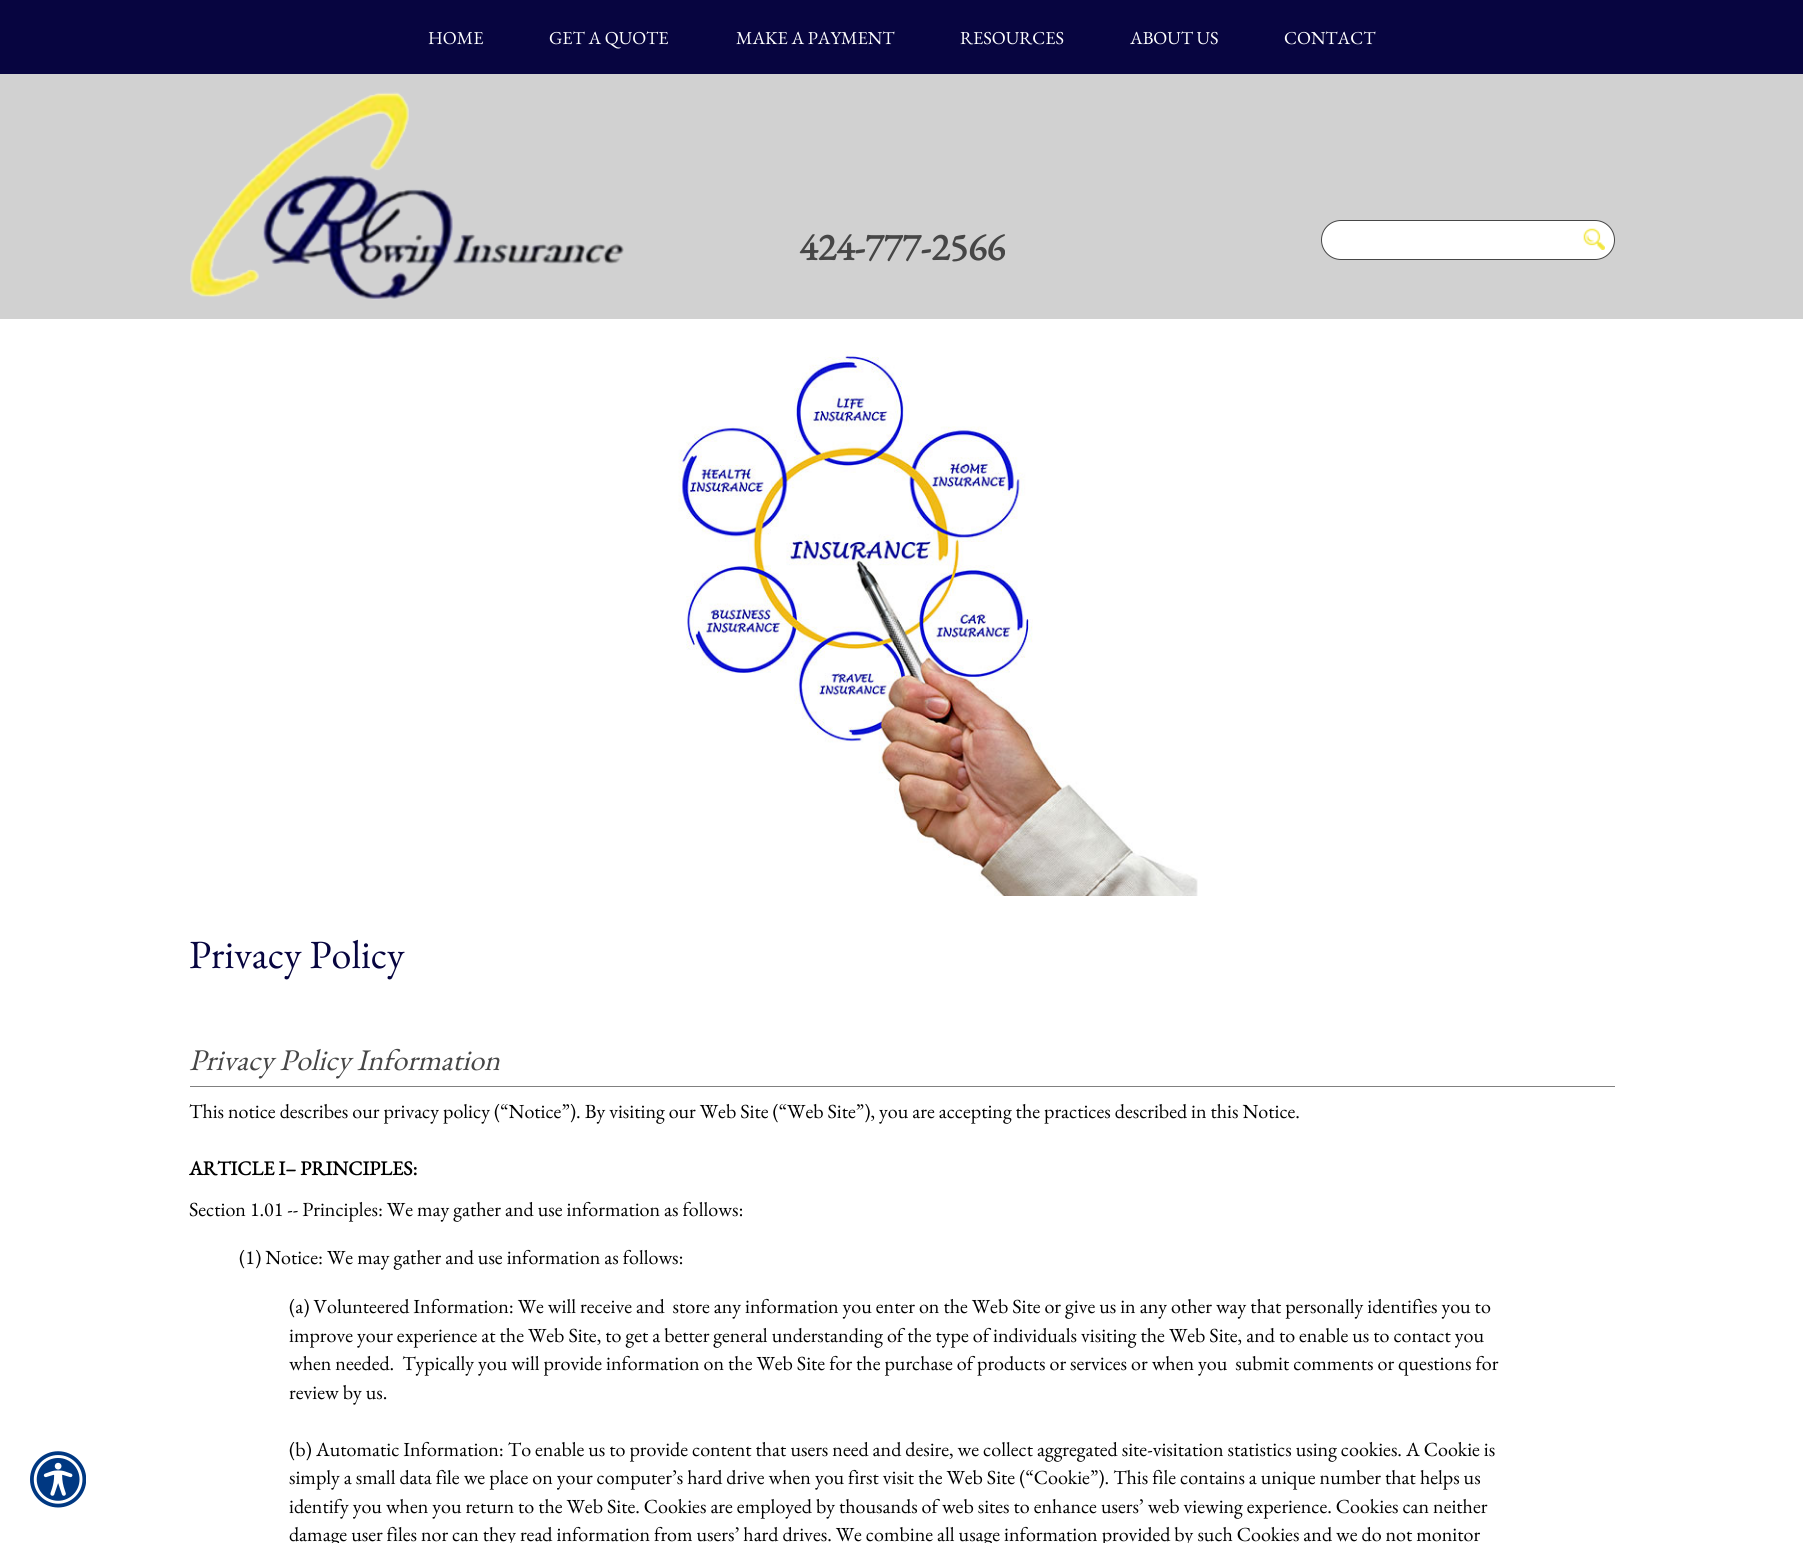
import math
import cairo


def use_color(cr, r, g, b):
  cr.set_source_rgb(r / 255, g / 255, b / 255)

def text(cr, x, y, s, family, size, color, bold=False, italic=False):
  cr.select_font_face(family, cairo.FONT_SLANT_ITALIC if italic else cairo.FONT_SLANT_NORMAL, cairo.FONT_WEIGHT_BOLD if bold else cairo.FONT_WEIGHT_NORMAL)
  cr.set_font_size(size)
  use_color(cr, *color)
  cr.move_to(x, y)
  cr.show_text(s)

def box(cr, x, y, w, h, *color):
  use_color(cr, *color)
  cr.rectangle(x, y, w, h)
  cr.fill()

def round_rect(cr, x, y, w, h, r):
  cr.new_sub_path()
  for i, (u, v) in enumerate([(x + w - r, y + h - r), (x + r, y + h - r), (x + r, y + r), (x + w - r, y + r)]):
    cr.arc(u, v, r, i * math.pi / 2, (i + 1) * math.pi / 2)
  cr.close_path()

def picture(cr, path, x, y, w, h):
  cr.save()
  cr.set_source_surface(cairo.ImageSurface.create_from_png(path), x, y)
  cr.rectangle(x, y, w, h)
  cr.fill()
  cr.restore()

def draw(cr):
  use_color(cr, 255, 255, 255)
  cr.paint()
  picture(cr, "img_01.png", 30, 1451, 56, 57)
  box(cr, 0, 74, 1803, 245, 209, 209, 209)
  box(cr, 0, 0, 1803, 74, 7, 5, 64)
  picture(cr, "img_02.png", 190, 92, 434, 208)
  use_color(cr, 255, 255, 255)
  round_rect(cr, 1321.5, 220.5, 293, 39, 19.5)
  cr.fill_preserve()
  use_color(cr, 70, 70, 70)
  cr.set_line_width(1)
  cr.stroke()
  picture(cr, "img_03.png", 1583, 228, 22, 22)
  picture(cr, "img_04.png", 678, 350, 520, 546)
  box(cr, 190, 1086, 1425, 1, 128, 128, 128)
  text(cr, 428, 44, "HOME", "EB Garamond", 18.25, (255, 255, 255))
  text(cr, 549, 44, "GET A QUOTE", "EB Garamond", 18.25, (255, 255, 255))
  text(cr, 736, 44, "MAKE A PAYMENT", "EB Garamond", 18.25, (255, 255, 255))
  text(cr, 960, 44, "RESOURCES", "EB Garamond", 18.25, (255, 255, 255))
  text(cr, 1130, 44, "ABOUT US", "EB Garamond", 18.25, (255, 255, 255))
  text(cr, 1284, 44, "CONTACT", "EB Garamond", 18.25, (255, 255, 255))
  text(cr, 799, 260, "424-777-2566", "EB Garamond", 38.5, (70, 70, 70), bold=True)
  text(cr, 189, 968, "Privacy Policy", "EB Garamond", 40, (7, 5, 64))
  text(cr, 189, 1070, "Privacy Policy Information", "EB Garamond", 30, (70, 70, 70), italic=True)
  text(cr, 189, 1118, "This notice describes our privacy policy (“Notice”). By visiting our Web Site (“Web Site”), you are accepting the practices described in this Notice.", "EB Garamond", 20, (0, 0, 0))
  text(cr, 189, 1175, "ARTICLE I– PRINCIPLES:", "EB Garamond", 20, (0, 0, 0), bold=True)
  text(cr, 189, 1216, "Section 1.01 -- Principles: We may gather and use information as follows:", "EB Garamond", 20, (0, 0, 0))
  text(cr, 239, 1264, "(1) Notice: We may gather and use information as follows:", "EB Garamond", 20, (0, 0, 0))
  text(cr, 289, 1313, "(a) Volunteered Information: We will receive and  store any information you enter on the Web Site or give us in any other way that personally identifies you to", "EB Garamond", 20, (0, 0, 0))
  text(cr, 289, 1342, "improve your experience at the Web Site, to get a better general understanding of the type of individuals visiting the Web Site, and to enable us to contact you", "EB Garamond", 20, (0, 0, 0))
  text(cr, 289, 1370, "when needed.  Typically you will provide information on the Web Site for the purchase of products or services or when you  submit comments or questions for", "EB Garamond", 20, (0, 0, 0))
  text(cr, 289, 1399, "review by us.", "EB Garamond", 20, (0, 0, 0))
  text(cr, 289, 1456, "(b) Automatic Information: To enable us to provide content that users need and desire, we collect aggregated site-visitation statistics using cookies. A Cookie is", "EB Garamond", 20, (0, 0, 0))
  text(cr, 289, 1484, "simply a small data file we place on your computer’s hard drive when you first visit the Web Site (“Cookie”). This file contains a unique number that helps us", "EB Garamond", 20, (0, 0, 0))
  text(cr, 289, 1513, "identify you when you return to the Web Site. Cookies are employed by thousands of web sites to enhance users’ web viewing experience. Cookies can neither", "EB Garamond", 20, (0, 0, 0))
  text(cr, 289, 1541, "damage user files nor can they read information from users’ hard drives. We combine all usage information provided by such Cookies and we do not monitor", "EB Garamond", 20, (0, 0, 0))


surface = cairo.ImageSurface(cairo.FORMAT_RGB24, 1803, 1543)
cr = cairo.Context(surface)
options = cairo.FontOptions()
options.set_hint_metrics(cairo.HINT_METRICS_OFF)
options.set_hint_style(cairo.HINT_STYLE_NONE)
cr.set_font_options(options)
cr.set_miter_limit(4)
draw(cr)
surface.write_to_png("out.png")
